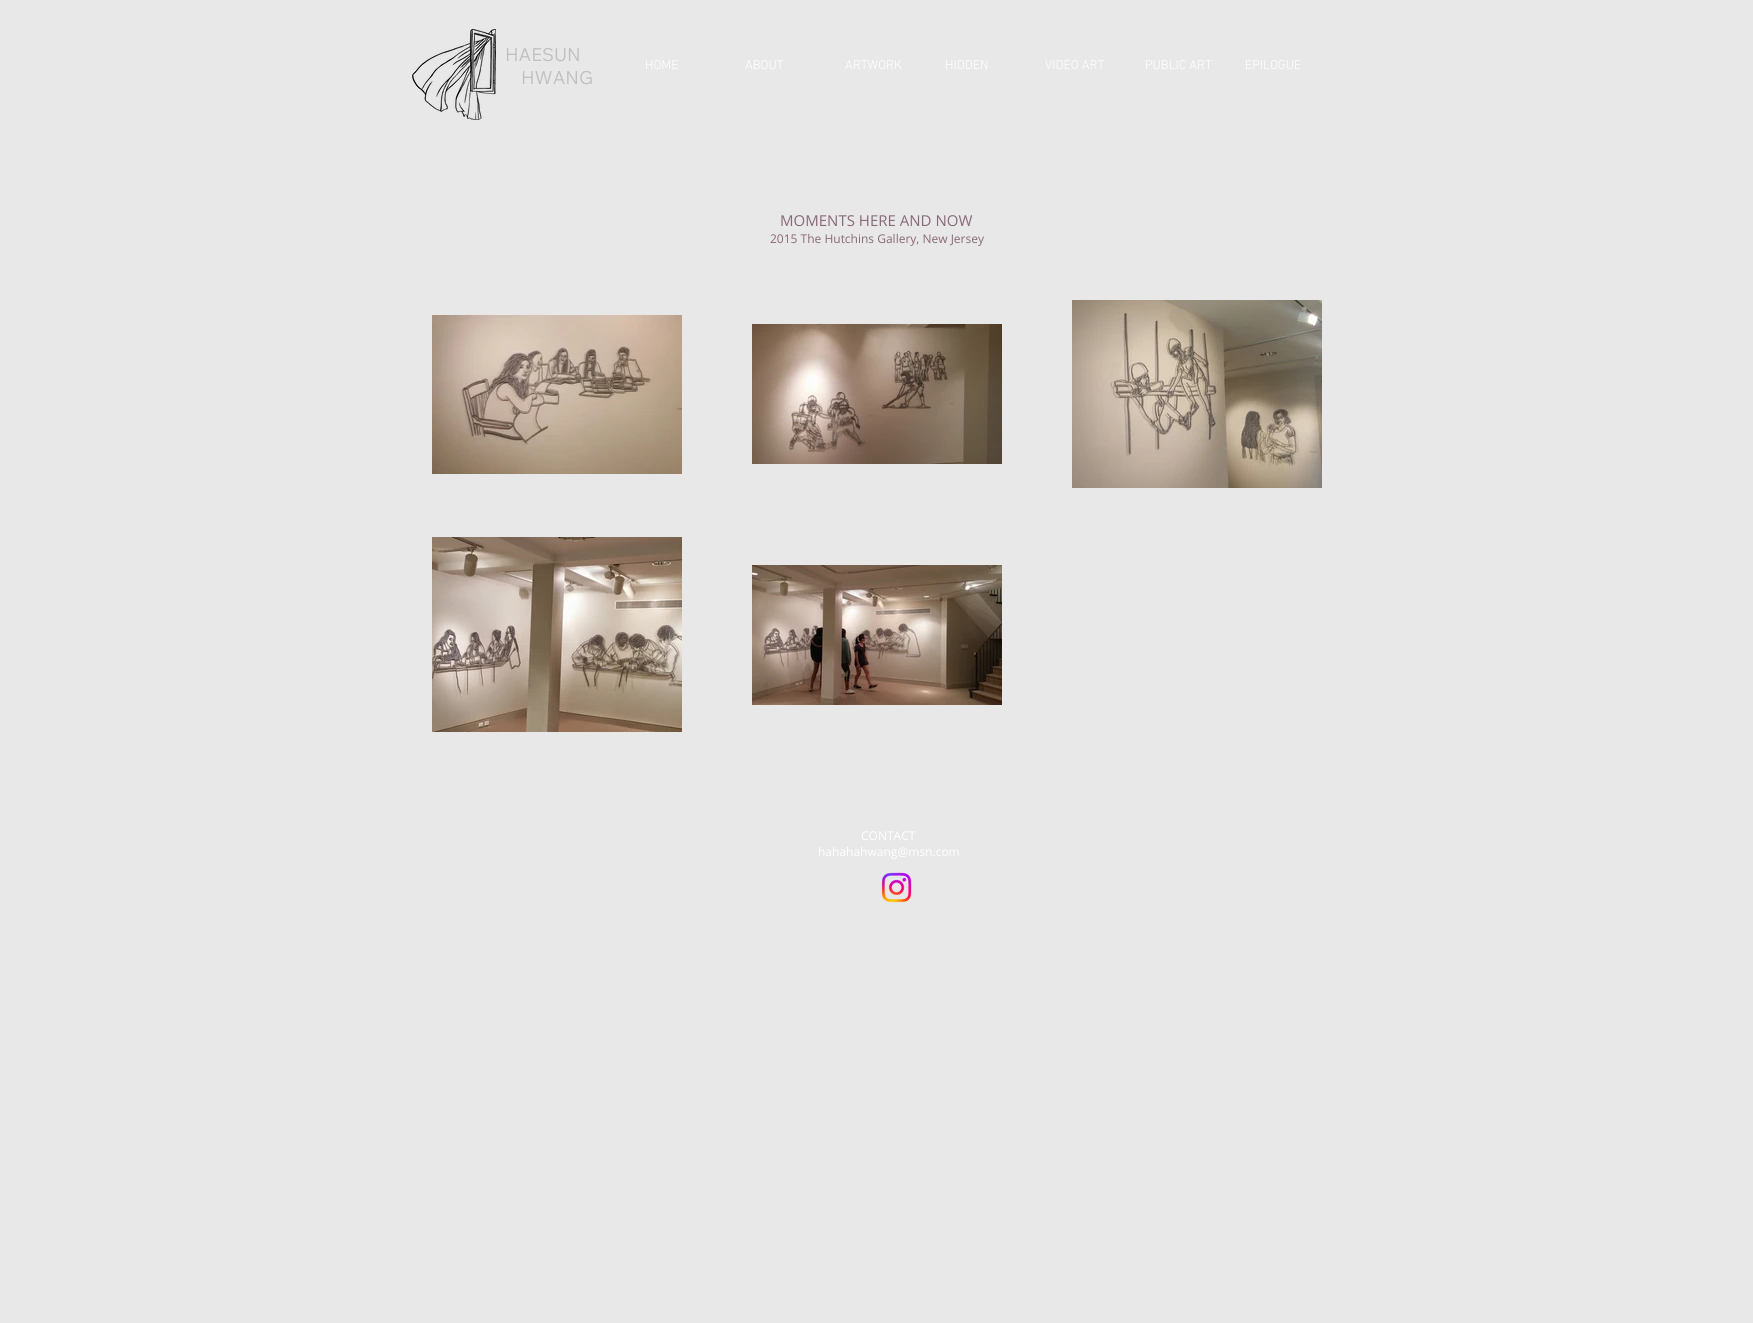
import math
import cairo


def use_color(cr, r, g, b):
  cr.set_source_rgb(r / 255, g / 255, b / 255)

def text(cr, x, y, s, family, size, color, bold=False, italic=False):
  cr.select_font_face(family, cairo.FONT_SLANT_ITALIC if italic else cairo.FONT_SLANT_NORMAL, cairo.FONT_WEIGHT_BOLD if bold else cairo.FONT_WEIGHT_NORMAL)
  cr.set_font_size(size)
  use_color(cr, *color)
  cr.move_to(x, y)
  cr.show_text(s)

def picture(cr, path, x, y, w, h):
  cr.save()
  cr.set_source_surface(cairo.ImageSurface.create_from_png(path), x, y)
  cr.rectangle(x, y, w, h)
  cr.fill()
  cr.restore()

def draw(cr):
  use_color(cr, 232, 232, 232)
  cr.paint()
  picture(cr, "img_01.png", 412, 29, 84, 91)
  picture(cr, "img_02.png", 432, 315, 250, 159)
  picture(cr, "img_03.png", 752, 324, 250, 140)
  picture(cr, "img_04.png", 1072, 300, 250, 188)
  picture(cr, "img_05.png", 432, 537, 250, 195)
  picture(cr, "img_06.png", 752, 565, 250, 140)
  picture(cr, "img_07.png", 881, 872, 31, 31)
  text(cr, 505, 61, "HAESUN", "Wix Madefor Text", 18, (191, 191, 191))
  text(cr, 521, 84, "HWANG", "Wix Madefor Text", 18, (191, 191, 191))
  text(cr, 645, 69, "HOME", "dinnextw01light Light", 13, (255, 255, 255))
  text(cr, 745, 69, "ABOUT", "dinnextw01light Light", 13, (255, 255, 255))
  text(cr, 845, 69, "ARTWORK", "dinnextw01light Light", 13, (255, 255, 255))
  text(cr, 945, 69, "HIDDEN", "dinnextw01light Light", 13, (255, 255, 255))
  text(cr, 1045, 69, "VIDEO ART", "dinnextw01light Light", 13, (255, 255, 255))
  text(cr, 1145, 69, "PUBLIC ART", "dinnextw01light Light", 13, (255, 255, 255))
  text(cr, 1245, 69, "EPILOGUE", "dinnextw01light Light", 13, (255, 255, 255))
  text(cr, 780, 226, "MOMENTS HERE AND NOW", "Open Sans", 15, (137, 105, 120))
  text(cr, 770, 243, "2015 The Hutchins Gallery, New Jersey", "Open Sans", 12, (137, 105, 120))
  text(cr, 861, 840, "CONTACT", "Open Sans", 12, (255, 255, 255))
  text(cr, 818, 856, "hahahahwang@msn.com", "Open Sans", 12, (255, 255, 255))


surface = cairo.ImageSurface(cairo.FORMAT_RGB24, 1753, 1323)
cr = cairo.Context(surface)
options = cairo.FontOptions()
options.set_hint_metrics(cairo.HINT_METRICS_OFF)
options.set_hint_style(cairo.HINT_STYLE_NONE)
cr.set_font_options(options)
cr.set_miter_limit(4)
draw(cr)
surface.write_to_png("out.png")
